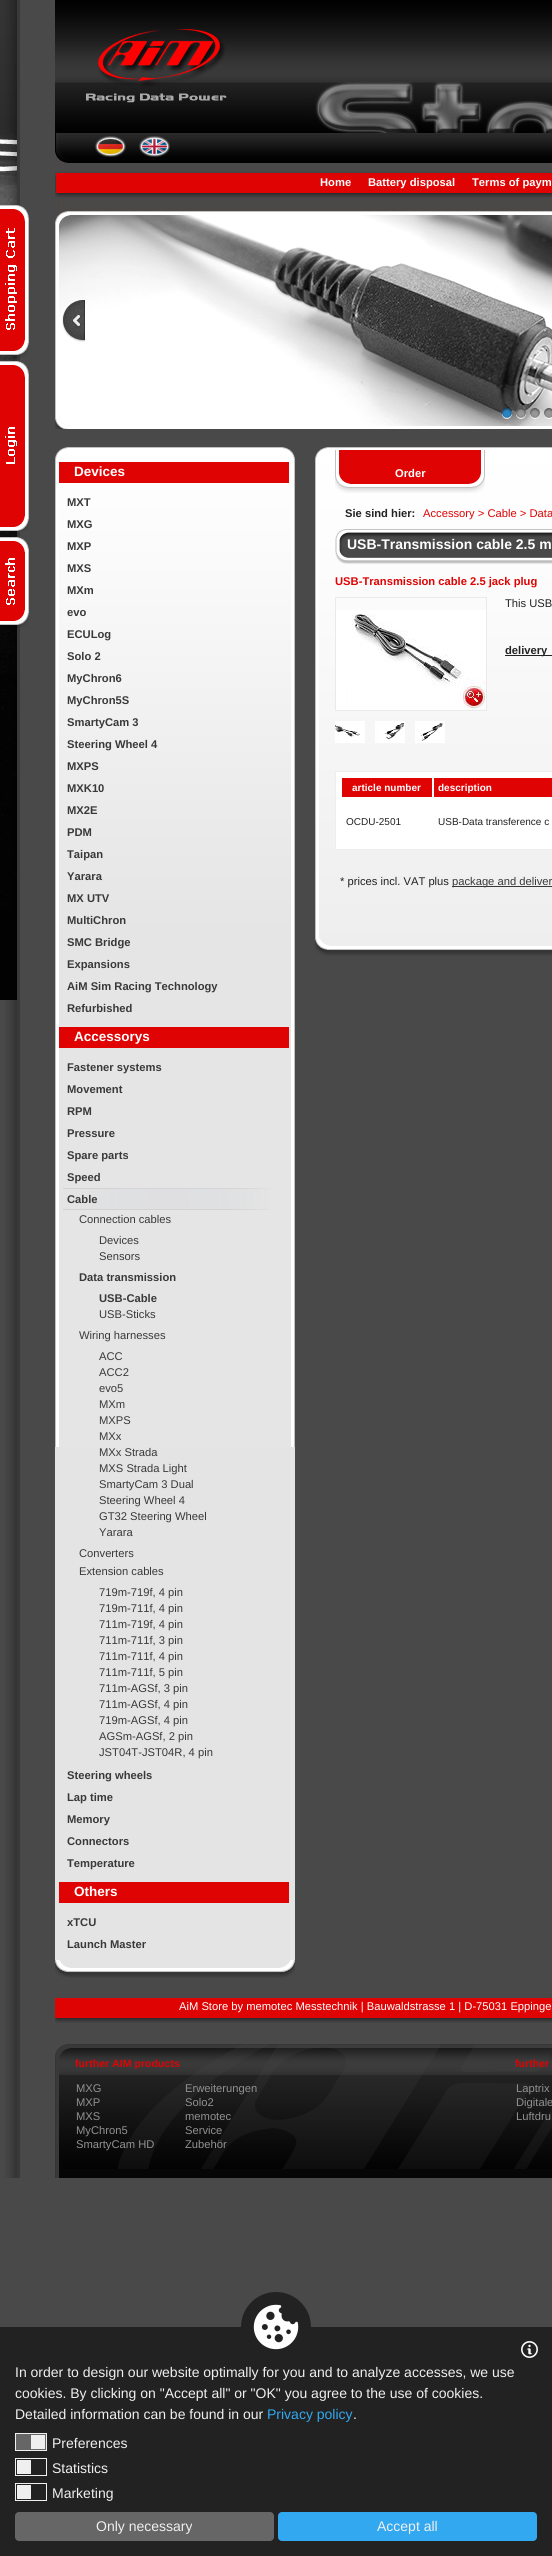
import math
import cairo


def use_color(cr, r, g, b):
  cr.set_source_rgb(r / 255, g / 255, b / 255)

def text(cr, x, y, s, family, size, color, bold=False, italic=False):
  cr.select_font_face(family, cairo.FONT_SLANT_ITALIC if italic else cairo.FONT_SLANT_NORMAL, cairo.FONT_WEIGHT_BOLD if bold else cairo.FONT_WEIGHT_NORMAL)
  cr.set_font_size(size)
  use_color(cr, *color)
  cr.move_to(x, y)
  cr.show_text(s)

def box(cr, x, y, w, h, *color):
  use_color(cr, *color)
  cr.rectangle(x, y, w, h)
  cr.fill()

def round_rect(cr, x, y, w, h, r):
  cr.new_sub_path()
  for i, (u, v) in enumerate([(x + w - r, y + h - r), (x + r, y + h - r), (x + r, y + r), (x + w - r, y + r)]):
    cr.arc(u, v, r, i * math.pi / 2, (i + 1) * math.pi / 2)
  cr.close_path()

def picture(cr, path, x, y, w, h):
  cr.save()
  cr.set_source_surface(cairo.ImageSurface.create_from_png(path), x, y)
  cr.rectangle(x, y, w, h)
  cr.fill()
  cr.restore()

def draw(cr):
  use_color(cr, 73, 73, 73)
  cr.paint()
  picture(cr, "img_01.png", 0, 0, 17, 1000)
  picture(cr, "img_05.png", 4, 0, 16, 2178)
  picture(cr, "img_02.png", 0, 205, 29, 153)
  picture(cr, "img_03.png", 0, 361, 29, 170)
  picture(cr, "img_04.png", 0, 537, 29, 90)
  picture(cr, "img_06.png", 55, 0, 497, 223)
  picture(cr, "img_07.png", 95, 136, 31, 21)
  picture(cr, "img_08.png", 139, 136, 31, 21)
  picture(cr, "img_09.png", 55, 211, 497, 218)
  picture(cr, "img_10.png", 62, 300, 23, 42)
  picture(cr, "img_11.png", 502, 408, 10, 11)
  picture(cr, "img_12.png", 516, 408, 10, 11)
  picture(cr, "img_13.png", 530, 408, 10, 11)
  picture(cr, "img_14.png", 544, 408, 8, 11)
  box(cr, 55, 1447, 240, 521, 228, 228, 228)
  picture(cr, "img_15.png", 55, 451, 240, 996)
  picture(cr, "img_16.png", 55, 447, 240, 12)
  box(cr, 59, 462, 230, 21, 223, 3, 3)
  box(cr, 59, 1027, 230, 21, 223, 3, 3)
  picture(cr, "img_17.png", 63, 1188, 207, 22)
  box(cr, 59, 1882, 230, 21, 223, 3, 3)
  picture(cr, "img_18.png", 55, 1960, 240, 18)
  picture(cr, "img_19.png", 315, 451, 237, 495)
  picture(cr, "img_20.png", 315, 447, 237, 12)
  picture(cr, "img_21.png", 335, 450, 150, 43)
  picture(cr, "img_22.png", 335, 529, 217, 35)
  cr.rectangle(335.5, 597.5, 151, 113)
  use_color(cr, 234, 234, 234)
  cr.set_line_width(1)
  cr.stroke()
  picture(cr, "img_23.png", 336, 610, 150, 100)
  picture(cr, "img_24.png", 335, 721, 30, 22)
  picture(cr, "img_25.png", 375, 721, 30, 22)
  picture(cr, "img_26.png", 415, 721, 30, 22)
  box(cr, 505, 655, 47, 1, 34, 34, 34)
  use_color(cr, 255, 255, 255)
  cr.rectangle(335.5, 771.5, 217, 78)
  cr.fill_preserve()
  use_color(cr, 238, 238, 238)
  cr.stroke()
  box(cr, 342, 778, 90, 19, 223, 3, 3)
  box(cr, 434, 778, 118, 19, 223, 3, 3)
  box(cr, 452, 886, 100, 1, 57, 57, 57)
  picture(cr, "img_27.png", 315, 938, 237, 18)
  picture(cr, "img_28.png", 55, 1998, 497, 25)
  picture(cr, "img_29.png", 55, 2044, 497, 134)
  box(cr, 0, 2327, 552, 229, 34, 34, 34)
  picture(cr, "img_30.png", 241, 2292, 70, 58)
  picture(cr, "img_31.png", 521, 2341, 17, 17)
  use_color(cr, 102, 102, 102)
  cr.rectangle(15.5, 2433.5, 31, 17)
  cr.fill_preserve()
  use_color(cr, 239, 239, 239)
  cr.stroke()
  box(cr, 31, 2435, 14, 14, 239, 239, 239)
  cr.rectangle(15.5, 2458.5, 31, 17)
  cr.stroke()
  box(cr, 17, 2460, 14, 14, 239, 239, 239)
  cr.rectangle(15.5, 2483.5, 31, 17)
  cr.stroke()
  box(cr, 17, 2485, 14, 14, 239, 239, 239)
  use_color(cr, 102, 102, 102)
  round_rect(cr, 15, 2512, 259, 29, 4)
  cr.fill()
  use_color(cr, 49, 168, 240)
  round_rect(cr, 278, 2512, 259, 29, 4)
  cr.fill()
  text(cr, 320, 186, "Home", "Liberation Sans", 11.2, (255, 255, 255), bold=True)
  text(cr, 368, 186, "Battery disposal", "Liberation Sans", 11.2, (255, 255, 255), bold=True)
  text(cr, 472, 186, "Terms of paym", "Liberation Sans", 11.2, (255, 255, 255), bold=True)
  text(cr, 74, 476, "Devices", "Liberation Sans", 13.5, (255, 255, 255), bold=True)
  text(cr, 67, 506, "MXT", "Liberation Sans", 11.2, (57, 57, 57), bold=True)
  text(cr, 67, 528, "MXG", "Liberation Sans", 11.2, (57, 57, 57), bold=True)
  text(cr, 67, 550, "MXP", "Liberation Sans", 11.2, (57, 57, 57), bold=True)
  text(cr, 67, 572, "MXS", "Liberation Sans", 11.2, (57, 57, 57), bold=True)
  text(cr, 67, 594, "MXm", "Liberation Sans", 11.2, (57, 57, 57), bold=True)
  text(cr, 67, 616, "evo", "Liberation Sans", 11.2, (57, 57, 57), bold=True)
  text(cr, 67, 638, "ECULog", "Liberation Sans", 11.2, (57, 57, 57), bold=True)
  text(cr, 67, 660, "Solo 2", "Liberation Sans", 11.2, (57, 57, 57), bold=True)
  text(cr, 67, 682, "MyChron6", "Liberation Sans", 11.2, (57, 57, 57), bold=True)
  text(cr, 67, 704, "MyChron5S", "Liberation Sans", 11.2, (57, 57, 57), bold=True)
  text(cr, 67, 726, "SmartyCam 3", "Liberation Sans", 11.2, (57, 57, 57), bold=True)
  text(cr, 67, 748, "Steering Wheel 4", "Liberation Sans", 11.2, (57, 57, 57), bold=True)
  text(cr, 67, 770, "MXPS", "Liberation Sans", 11.2, (57, 57, 57), bold=True)
  text(cr, 67, 792, "MXK10", "Liberation Sans", 11.2, (57, 57, 57), bold=True)
  text(cr, 67, 814, "MX2E", "Liberation Sans", 11.2, (57, 57, 57), bold=True)
  text(cr, 67, 836, "PDM", "Liberation Sans", 11.2, (57, 57, 57), bold=True)
  text(cr, 67, 858, "Taipan", "Liberation Sans", 11.2, (57, 57, 57), bold=True)
  text(cr, 67, 880, "Yarara", "Liberation Sans", 11.2, (57, 57, 57), bold=True)
  text(cr, 67, 902, "MX UTV", "Liberation Sans", 11.2, (57, 57, 57), bold=True)
  text(cr, 67, 924, "MultiChron", "Liberation Sans", 11.2, (57, 57, 57), bold=True)
  text(cr, 67, 946, "SMC Bridge", "Liberation Sans", 11.2, (57, 57, 57), bold=True)
  text(cr, 67, 968, "Expansions", "Liberation Sans", 11.2, (57, 57, 57), bold=True)
  text(cr, 67, 990, "AiM Sim Racing Technology", "Liberation Sans", 11.2, (57, 57, 57), bold=True)
  text(cr, 67, 1012, "Refurbished", "Liberation Sans", 11.2, (57, 57, 57), bold=True)
  text(cr, 74, 1041, "Accessorys", "Liberation Sans", 13.5, (255, 255, 255), bold=True)
  text(cr, 67, 1071, "Fastener systems", "Liberation Sans", 11.2, (57, 57, 57), bold=True)
  text(cr, 67, 1093, "Movement", "Liberation Sans", 11.2, (57, 57, 57), bold=True)
  text(cr, 67, 1115, "RPM", "Liberation Sans", 11.2, (57, 57, 57), bold=True)
  text(cr, 67, 1137, "Pressure", "Liberation Sans", 11.2, (57, 57, 57), bold=True)
  text(cr, 67, 1159, "Spare parts", "Liberation Sans", 11.2, (57, 57, 57), bold=True)
  text(cr, 67, 1181, "Speed", "Liberation Sans", 11.2, (57, 57, 57), bold=True)
  text(cr, 67, 1203, "Cable", "Liberation Sans", 11.2, (57, 57, 57), bold=True)
  text(cr, 79, 1223, "Connection cables", "Liberation Sans", 11.2, (57, 57, 57))
  text(cr, 99, 1244, "Devices", "Liberation Sans", 11.2, (57, 57, 57))
  text(cr, 99, 1260, "Sensors", "Liberation Sans", 11.2, (57, 57, 57))
  text(cr, 79, 1281, "Data transmission", "Liberation Sans", 11.2, (57, 57, 57), bold=True)
  text(cr, 99, 1302, "USB-Cable", "Liberation Sans", 11.2, (57, 57, 57), bold=True)
  text(cr, 99, 1318, "USB-Sticks", "Liberation Sans", 11.2, (57, 57, 57))
  text(cr, 79, 1339, "Wiring harnesses", "Liberation Sans", 11.2, (57, 57, 57))
  text(cr, 99, 1360, "ACC", "Liberation Sans", 11.2, (57, 57, 57))
  text(cr, 99, 1376, "ACC2", "Liberation Sans", 11.2, (57, 57, 57))
  text(cr, 99, 1392, "evo5", "Liberation Sans", 11.2, (57, 57, 57))
  text(cr, 99, 1408, "MXm", "Liberation Sans", 11.2, (57, 57, 57))
  text(cr, 99, 1424, "MXPS", "Liberation Sans", 11.2, (57, 57, 57))
  text(cr, 99, 1440, "MXx", "Liberation Sans", 11.2, (57, 57, 57))
  text(cr, 99, 1456, "MXx Strada", "Liberation Sans", 11.2, (57, 57, 57))
  text(cr, 99, 1472, "MXS Strada Light", "Liberation Sans", 11.2, (57, 57, 57))
  text(cr, 99, 1488, "SmartyCam 3 Dual", "Liberation Sans", 11.2, (57, 57, 57))
  text(cr, 99, 1504, "Steering Wheel 4", "Liberation Sans", 11.2, (57, 57, 57))
  text(cr, 99, 1520, "GT32 Steering Wheel", "Liberation Sans", 11.2, (57, 57, 57))
  text(cr, 99, 1536, "Yarara", "Liberation Sans", 11.2, (57, 57, 57))
  text(cr, 79, 1557, "Converters", "Liberation Sans", 11.2, (57, 57, 57))
  text(cr, 79, 1575, "Extension cables", "Liberation Sans", 11.2, (57, 57, 57))
  text(cr, 99, 1596, "719m-719f, 4 pin", "Liberation Sans", 11.2, (57, 57, 57))
  text(cr, 99, 1612, "719m-711f, 4 pin", "Liberation Sans", 11.2, (57, 57, 57))
  text(cr, 99, 1628, "711m-719f, 4 pin", "Liberation Sans", 11.2, (57, 57, 57))
  text(cr, 99, 1644, "711m-711f, 3 pin", "Liberation Sans", 11.2, (57, 57, 57))
  text(cr, 99, 1660, "711m-711f, 4 pin", "Liberation Sans", 11.2, (57, 57, 57))
  text(cr, 99, 1676, "711m-711f, 5 pin", "Liberation Sans", 11.2, (57, 57, 57))
  text(cr, 99, 1692, "711m-AGSf, 3 pin", "Liberation Sans", 11.2, (57, 57, 57))
  text(cr, 99, 1708, "711m-AGSf, 4 pin", "Liberation Sans", 11.2, (57, 57, 57))
  text(cr, 99, 1724, "719m-AGSf, 4 pin", "Liberation Sans", 11.2, (57, 57, 57))
  text(cr, 99, 1740, "AGSm-AGSf, 2 pin", "Liberation Sans", 11.2, (57, 57, 57))
  text(cr, 99, 1756, "JST04T-JST04R, 4 pin", "Liberation Sans", 11.2, (57, 57, 57))
  text(cr, 67, 1779, "Steering wheels", "Liberation Sans", 11.2, (57, 57, 57), bold=True)
  text(cr, 67, 1801, "Lap time", "Liberation Sans", 11.2, (57, 57, 57), bold=True)
  text(cr, 67, 1823, "Memory", "Liberation Sans", 11.2, (57, 57, 57), bold=True)
  text(cr, 67, 1845, "Connectors", "Liberation Sans", 11.2, (57, 57, 57), bold=True)
  text(cr, 67, 1867, "Temperature", "Liberation Sans", 11.2, (57, 57, 57), bold=True)
  text(cr, 74, 1896, "Others", "Liberation Sans", 13.5, (255, 255, 255), bold=True)
  text(cr, 67, 1926, "xTCU", "Liberation Sans", 11.2, (57, 57, 57), bold=True)
  text(cr, 67, 1948, "Launch Master", "Liberation Sans", 11.2, (57, 57, 57), bold=True)
  text(cr, 395, 477, "Order", "Liberation Sans", 11.2, (255, 255, 255), bold=True)
  text(cr, 345, 517, "Sie sind hier:", "Liberation Sans", 11.2, (34, 34, 34), bold=True)
  text(cr, 423, 517, "Accessory > Cable > Data", "Liberation Sans", 11.2, (223, 3, 3))
  text(cr, 347, 549, "USB-Transmission cable 2.5 m", "Liberation Sans", 14, (255, 255, 255), bold=True)
  text(cr, 335, 585, "USB-Transmission cable 2.5 jack plug", "Liberation Sans", 11.2, (223, 3, 3), bold=True)
  text(cr, 505, 607, "This USB", "Liberation Sans", 11.2, (34, 34, 34))
  text(cr, 505, 654, "delivery", "Liberation Sans", 11.2, (34, 34, 34), bold=True)
  text(cr, 352, 791, "article number", "Liberation Sans", 10, (255, 255, 255), bold=True)
  text(cr, 438, 791, "description", "Liberation Sans", 10, (255, 255, 255), bold=True)
  text(cr, 346, 825, "OCDU-2501", "Liberation Sans", 10, (34, 34, 34))
  text(cr, 438, 825, "USB-Data transference c", "Liberation Sans", 10, (34, 34, 34))
  text(cr, 340, 885, "* prices incl. VAT plus", "Liberation Sans", 11.2, (34, 34, 34))
  text(cr, 452, 885, "package and deliver", "Liberation Sans", 11.2, (57, 57, 57))
  text(cr, 179, 2010, "AiM Store by memotec Messtechnik | Bauwaldstrasse 1 | D-75031 Eppinge", "Liberation Sans", 11.2, (255, 255, 255))
  text(cr, 75, 2067, "further AIM products", "Liberation Sans", 10.6, (223, 3, 3), bold=True)
  text(cr, 76, 2092, "MXG", "Liberation Sans", 11.2, (145, 145, 145))
  text(cr, 185, 2092, "Erweiterungen", "Liberation Sans", 11.2, (145, 145, 145))
  text(cr, 76, 2106, "MXP", "Liberation Sans", 11.2, (145, 145, 145))
  text(cr, 185, 2106, "Solo2", "Liberation Sans", 11.2, (145, 145, 145))
  text(cr, 76, 2120, "MXS", "Liberation Sans", 11.2, (145, 145, 145))
  text(cr, 185, 2120, "memotec", "Liberation Sans", 11.2, (145, 145, 145))
  text(cr, 76, 2134, "MyChron5", "Liberation Sans", 11.2, (145, 145, 145))
  text(cr, 185, 2134, "Service", "Liberation Sans", 11.2, (145, 145, 145))
  text(cr, 76, 2148, "SmartyCam HD", "Liberation Sans", 11.2, (145, 145, 145))
  text(cr, 185, 2148, "Zubehör", "Liberation Sans", 11.2, (145, 145, 145))
  text(cr, 515, 2067, "further", "Liberation Sans", 10.6, (223, 3, 3), bold=True)
  text(cr, 516, 2092, "Laptrix", "Liberation Sans", 11.2, (145, 145, 145))
  text(cr, 516, 2106, "Digitale", "Liberation Sans", 11.2, (145, 145, 145))
  text(cr, 516, 2120, "Luftdru", "Liberation Sans", 11.2, (145, 145, 145))
  text(cr, 15, 2377, "In order to design our website optimally for you and to analyze accesses, we use", "Liberation Sans", 14, (239, 239, 239))
  text(cr, 15, 2398, "cookies. By clicking on \"Accept all\" or \"OK\" you agree to the use of cookies.", "Liberation Sans", 14, (239, 239, 239))
  text(cr, 15, 2419, "Detailed information can be found in our", "Liberation Sans", 14, (239, 239, 239))
  text(cr, 267, 2419, "Privacy policy", "Liberation Sans", 14, (49, 168, 240))
  text(cr, 353, 2419, ".", "Liberation Sans", 14, (239, 239, 239))
  text(cr, 52, 2448, "Preferences", "Liberation Sans", 14, (239, 239, 239))
  text(cr, 52, 2473, "Statistics", "Liberation Sans", 14, (239, 239, 239))
  text(cr, 52, 2498, "Marketing", "Liberation Sans", 14, (239, 239, 239))
  text(cr, 96, 2531, "Only necessary", "Liberation Sans", 14, (239, 239, 239))
  text(cr, 377, 2531, "Accept all", "Liberation Sans", 14, (239, 239, 239))


surface = cairo.ImageSurface(cairo.FORMAT_RGB24, 552, 2556)
cr = cairo.Context(surface)
options = cairo.FontOptions()
options.set_hint_metrics(cairo.HINT_METRICS_OFF)
options.set_hint_style(cairo.HINT_STYLE_NONE)
cr.set_font_options(options)
cr.set_miter_limit(4)
draw(cr)
surface.write_to_png("out.png")
